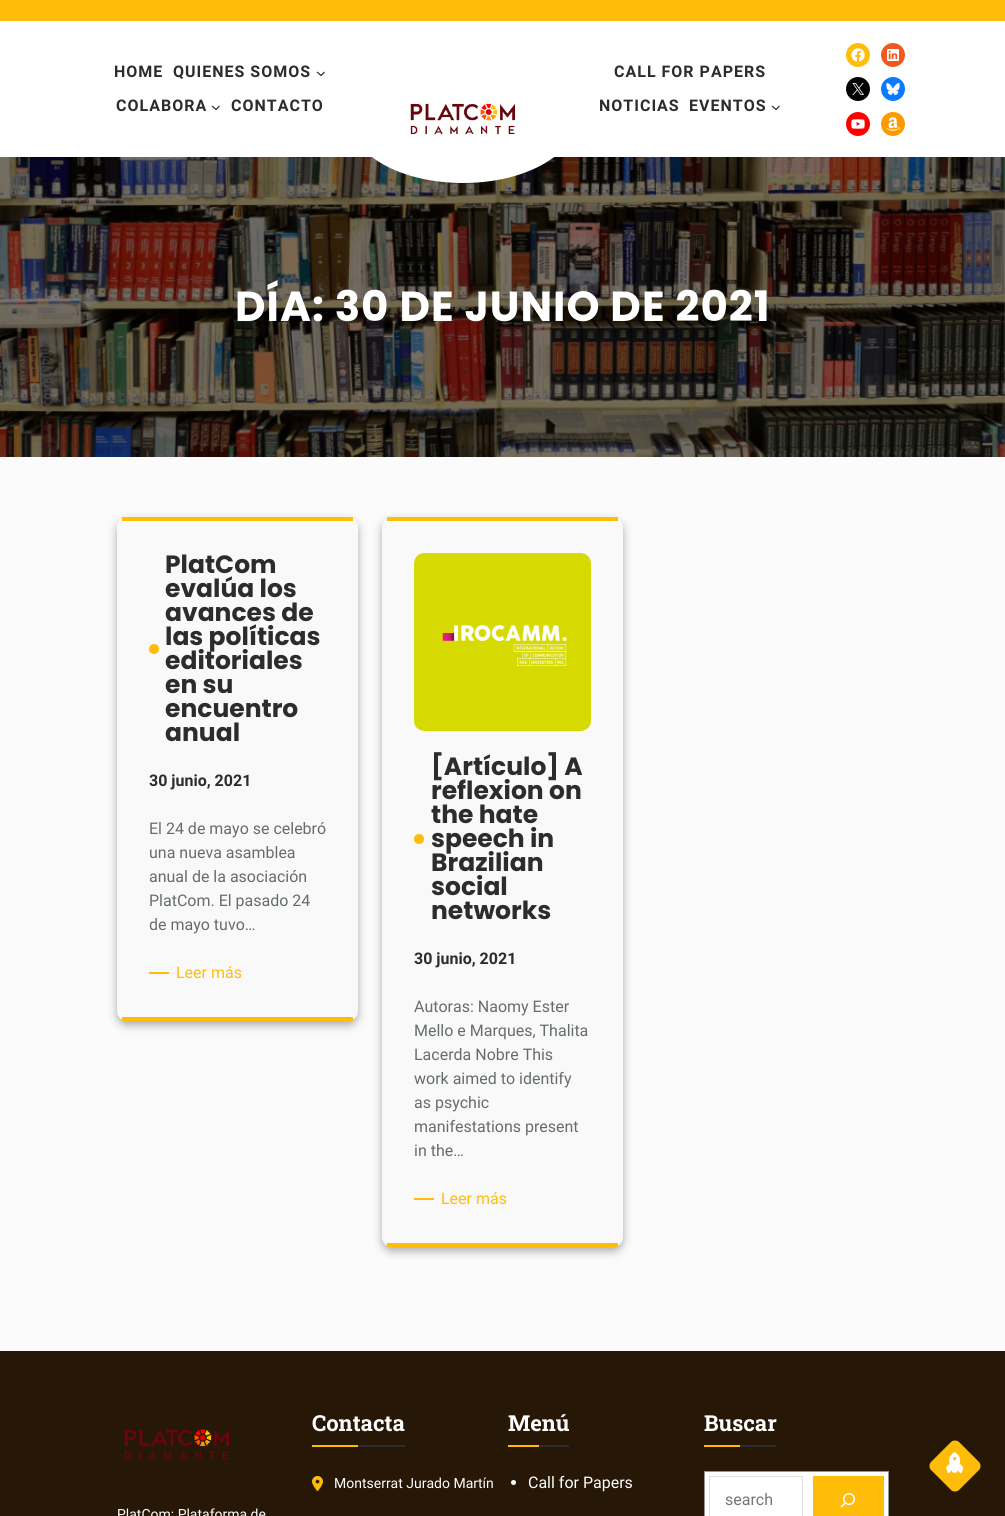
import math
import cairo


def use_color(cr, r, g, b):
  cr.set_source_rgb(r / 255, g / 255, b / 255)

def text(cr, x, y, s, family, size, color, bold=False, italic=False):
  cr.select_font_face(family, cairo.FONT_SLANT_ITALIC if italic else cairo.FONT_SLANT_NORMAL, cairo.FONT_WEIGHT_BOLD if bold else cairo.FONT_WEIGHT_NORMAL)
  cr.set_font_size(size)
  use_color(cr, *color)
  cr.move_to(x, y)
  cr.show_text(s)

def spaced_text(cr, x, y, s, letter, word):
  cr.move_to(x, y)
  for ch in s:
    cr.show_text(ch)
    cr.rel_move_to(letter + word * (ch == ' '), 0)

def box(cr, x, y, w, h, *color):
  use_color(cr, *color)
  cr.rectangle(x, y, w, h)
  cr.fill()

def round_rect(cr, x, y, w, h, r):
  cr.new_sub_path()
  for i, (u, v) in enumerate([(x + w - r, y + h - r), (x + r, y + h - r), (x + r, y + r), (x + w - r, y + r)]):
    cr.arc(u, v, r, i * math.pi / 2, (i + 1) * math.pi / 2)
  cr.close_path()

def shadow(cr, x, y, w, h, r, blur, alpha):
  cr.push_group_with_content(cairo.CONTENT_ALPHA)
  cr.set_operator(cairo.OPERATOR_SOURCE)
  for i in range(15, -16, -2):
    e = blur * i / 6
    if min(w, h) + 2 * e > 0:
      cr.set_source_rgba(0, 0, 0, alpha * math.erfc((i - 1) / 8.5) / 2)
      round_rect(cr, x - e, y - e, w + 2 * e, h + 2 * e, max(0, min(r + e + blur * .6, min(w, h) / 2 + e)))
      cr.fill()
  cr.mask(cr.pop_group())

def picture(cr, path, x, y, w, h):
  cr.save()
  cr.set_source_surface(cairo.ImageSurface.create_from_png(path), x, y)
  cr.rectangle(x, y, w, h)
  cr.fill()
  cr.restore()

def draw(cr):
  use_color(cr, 251, 251, 251)
  cr.paint()
  box(cr, 0, 0, 1005, 21, 255, 189, 10)
  box(cr, 0, 21, 1005, 136, 255, 255, 255)
  cr.new_path()
  cr.move_to(317, 72)
  cr.line_to(321, 75.5)
  cr.line_to(324.5, 72)
  use_color(cr, 44, 44, 44)
  cr.set_line_width(1.2)
  cr.stroke()
  cr.new_path()
  cr.move_to(212, 106)
  cr.line_to(216, 109.5)
  cr.line_to(219.5, 106)
  cr.stroke()
  picture(cr, "img_08.png", 0, 157, 1005, 300)
  use_color(cr, 255, 255, 255)
  cr.new_path()
  cr.move_to(463, 55)
  cr.curve_to(525.5, 55, 576, 83.5, 576, 119)
  cr.curve_to(576, 154.5, 525.5, 183, 463, 183)
  cr.curve_to(400.5, 183, 350, 154.5, 350, 119)
  cr.curve_to(350, 83.5, 400.5, 55, 463, 55)
  cr.close_path()
  cr.fill()
  picture(cr, "img_01.png", 410, 103, 106, 32)
  cr.new_path()
  cr.move_to(772, 106)
  cr.line_to(776, 109.5)
  cr.line_to(779.5, 106)
  use_color(cr, 44, 44, 44)
  cr.stroke()
  use_color(cr, 255, 189, 10)
  cr.arc(858, 55, 12, 0, 2 * math.pi)
  cr.fill()
  picture(cr, "img_02.png", 851, 48, 14, 14)
  use_color(cr, 239, 89, 33)
  cr.arc(893, 55, 12, 0, 2 * math.pi)
  cr.fill()
  picture(cr, "img_03.png", 887, 49, 12, 12)
  use_color(cr, 0, 0, 0)
  cr.arc(858, 89, 12, 0, 2 * math.pi)
  cr.fill()
  picture(cr, "img_04.png", 852, 83, 12, 12)
  use_color(cr, 10, 122, 255)
  cr.arc(893, 89, 12, 0, 2 * math.pi)
  cr.fill()
  picture(cr, "img_05.png", 886, 83, 14, 12)
  use_color(cr, 255, 0, 0)
  cr.arc(858, 124, 12, 0, 2 * math.pi)
  cr.fill()
  picture(cr, "img_06.png", 851, 119, 14, 10)
  use_color(cr, 255, 153, 0)
  cr.arc(893, 124, 12, 0, 2 * math.pi)
  cr.fill()
  picture(cr, "img_07.png", 885, 117, 16, 14)
  use_color(cr, 167, 170, 173)
  shadow(cr, 117, 521, 241, 504, 10, 4.5, 1)
  use_color(cr, 249, 249, 249)
  round_rect(cr, 117, 517, 241, 504, 10)
  cr.fill()
  box(cr, 122, 517, 231, 4, 255, 189, 10)
  box(cr, 122, 1017, 231, 4, 255, 189, 10)
  cr.arc(154, 649, 5, 0, 2 * math.pi)
  cr.fill()
  box(cr, 149, 972, 20, 2, 255, 189, 10)
  use_color(cr, 167, 170, 173)
  shadow(cr, 382, 521, 241, 730, 10, 4.5, 1)
  use_color(cr, 249, 249, 249)
  round_rect(cr, 382, 517, 241, 730, 10)
  cr.fill()
  box(cr, 387, 517, 231, 4, 255, 189, 10)
  box(cr, 387, 1243, 231, 4, 255, 189, 10)
  picture(cr, "img_09.png", 414, 553, 177, 178)
  cr.arc(419, 839, 5, 0, 2 * math.pi)
  cr.fill()
  box(cr, 414, 1198, 20, 2, 255, 189, 10)
  box(cr, 0, 1351, 1005, 165, 39, 23, 6)
  picture(cr, "img_10.png", 312, 1445, 93, 2)
  picture(cr, "img_11.png", 312, 1476, 11, 15)
  picture(cr, "img_12.png", 508, 1445, 61, 2)
  use_color(cr, 255, 255, 255)
  cr.arc(513.5, 1482.5, 2.5, 0, 2 * math.pi)
  cr.fill()
  picture(cr, "img_13.png", 704, 1445, 72, 2)
  cr.rectangle(704.5, 1471.5, 184, 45)
  cr.fill_preserve()
  use_color(cr, 148, 148, 148)
  cr.set_line_width(1)
  cr.stroke()
  cr.rectangle(709.5, 1476.5, 93, 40)
  use_color(cr, 223, 223, 223)
  cr.stroke()
  box(cr, 813, 1476, 71, 40, 255, 189, 10)
  picture(cr, "img_14.png", 840, 1493, 16, 15)
  picture(cr, "img_15.png", 124, 1429, 105, 31)
  cr.new_path()
  cr.move_to(931, 1462)
  cr.line_to(951, 1442)
  cr.curve_to(953, 1440, 957, 1440, 959, 1442)
  cr.line_to(979, 1462)
  cr.curve_to(981, 1464, 981, 1468, 979, 1470)
  cr.line_to(959, 1490)
  cr.curve_to(957, 1492, 953, 1492, 951, 1490)
  cr.line_to(931, 1470)
  cr.curve_to(929, 1468, 929, 1464, 931, 1462)
  cr.close_path()
  cr.fill()
  picture(cr, "img_16.png", 946, 1452, 18, 22)
  cr.select_font_face("Roboto", cairo.FONT_SLANT_NORMAL, cairo.FONT_WEIGHT_BOLD)
  cr.set_font_size(16)
  use_color(cr, 44, 44, 44)
  spaced_text(cr, 114, 77, "HOME", 1, 0)
  spaced_text(cr, 173, 77, "QUIENES SOMOS", 1, 0)
  spaced_text(cr, 116, 111, "COLABORA", 1, 0)
  spaced_text(cr, 231, 111, "CONTACTO", 1, 0)
  spaced_text(cr, 614, 77, "CALL FOR PAPERS", 1, 0)
  spaced_text(cr, 599, 111, "NOTICIAS", 1, 0)
  spaced_text(cr, 689, 111, "EVENTOS", 1, 0)
  cr.select_font_face("Poppins", cairo.FONT_SLANT_NORMAL, cairo.FONT_WEIGHT_BOLD)
  cr.set_font_size(42)
  use_color(cr, 255, 255, 255)
  spaced_text(cr, 235, 321, "DÍA: 30 DE JUNIO DE 2021", 1, 0)
  text(cr, 165, 573, "PlatCom", "Poppins", 25, (44, 44, 44), bold=True)
  text(cr, 165, 597, "evalúa los", "Poppins", 25, (44, 44, 44), bold=True)
  text(cr, 165, 621, "avances de", "Poppins", 25, (44, 44, 44), bold=True)
  text(cr, 165, 645, "las políticas", "Poppins", 25, (44, 44, 44), bold=True)
  text(cr, 165, 669, "editoriales", "Poppins", 25, (44, 44, 44), bold=True)
  text(cr, 165, 693, "en su", "Poppins", 25, (44, 44, 44), bold=True)
  text(cr, 165, 717, "encuentro", "Poppins", 25, (44, 44, 44), bold=True)
  text(cr, 165, 741, "anual", "Poppins", 25, (44, 44, 44), bold=True)
  text(cr, 149, 786, "30 junio, 2021", "Roboto", 16, (44, 44, 44), bold=True)
  text(cr, 149, 834, "El 24 de mayo se celebró", "Roboto", 16, (102, 108, 110))
  text(cr, 149, 858, "una nueva asamblea", "Roboto", 16, (102, 108, 110))
  text(cr, 149, 882, "anual de la asociación", "Roboto", 16, (102, 108, 110))
  text(cr, 149, 906, "PlatCom. El pasado 24", "Roboto", 16, (102, 108, 110))
  text(cr, 149, 930, "de mayo tuvo…", "Roboto", 16, (102, 108, 110))
  text(cr, 176, 978, "Leer más", "Roboto", 16, (255, 189, 10))
  text(cr, 431, 775, "[Artículo] A", "Poppins", 25, (44, 44, 44), bold=True)
  text(cr, 431, 799, "reflexion on", "Poppins", 25, (44, 44, 44), bold=True)
  text(cr, 431, 823, "the hate", "Poppins", 25, (44, 44, 44), bold=True)
  text(cr, 431, 847, "speech in", "Poppins", 25, (44, 44, 44), bold=True)
  text(cr, 431, 871, "Brazilian", "Poppins", 25, (44, 44, 44), bold=True)
  text(cr, 431, 895, "social", "Poppins", 25, (44, 44, 44), bold=True)
  text(cr, 431, 919, "networks", "Poppins", 25, (44, 44, 44), bold=True)
  text(cr, 414, 964, "30 junio, 2021", "Roboto", 16, (44, 44, 44), bold=True)
  text(cr, 414, 1012, "Autoras: Naomy Ester", "Roboto", 16, (102, 108, 110))
  text(cr, 414, 1036, "Mello e Marques, Thalita", "Roboto", 16, (102, 108, 110))
  text(cr, 414, 1060, "Lacerda Nobre This", "Roboto", 16, (102, 108, 110))
  text(cr, 414, 1084, "work aimed to identify", "Roboto", 16, (102, 108, 110))
  text(cr, 414, 1108, "as psychic", "Roboto", 16, (102, 108, 110))
  text(cr, 414, 1132, "manifestations present", "Roboto", 16, (102, 108, 110))
  text(cr, 414, 1156, "in the…", "Roboto", 16, (102, 108, 110))
  text(cr, 441, 1204, "Leer más", "Roboto", 16, (255, 189, 10))
  text(cr, 312, 1431, "Contacta", "Roboto Slab", 22, (255, 255, 255), bold=True)
  text(cr, 334, 1488, "Montserrat Jurado Martín", "Roboto", 14, (255, 255, 255))
  text(cr, 508, 1431, "Menú", "Roboto Slab", 22, (255, 255, 255), bold=True)
  text(cr, 528, 1488, "Call for Papers", "Roboto", 16, (255, 255, 255))
  text(cr, 704, 1431, "Buscar", "Roboto Slab", 22, (255, 255, 255), bold=True)
  text(cr, 725, 1505, "search", "Roboto", 16, (117, 117, 117))
  text(cr, 117, 1519, "PlatCom: Plataforma de", "Roboto", 14, (255, 255, 255))


surface = cairo.ImageSurface(cairo.FORMAT_RGB24, 1005, 1516)
cr = cairo.Context(surface)
options = cairo.FontOptions()
options.set_hint_metrics(cairo.HINT_METRICS_OFF)
options.set_hint_style(cairo.HINT_STYLE_NONE)
cr.set_font_options(options)
cr.set_miter_limit(4)
draw(cr)
surface.write_to_png("out.png")
